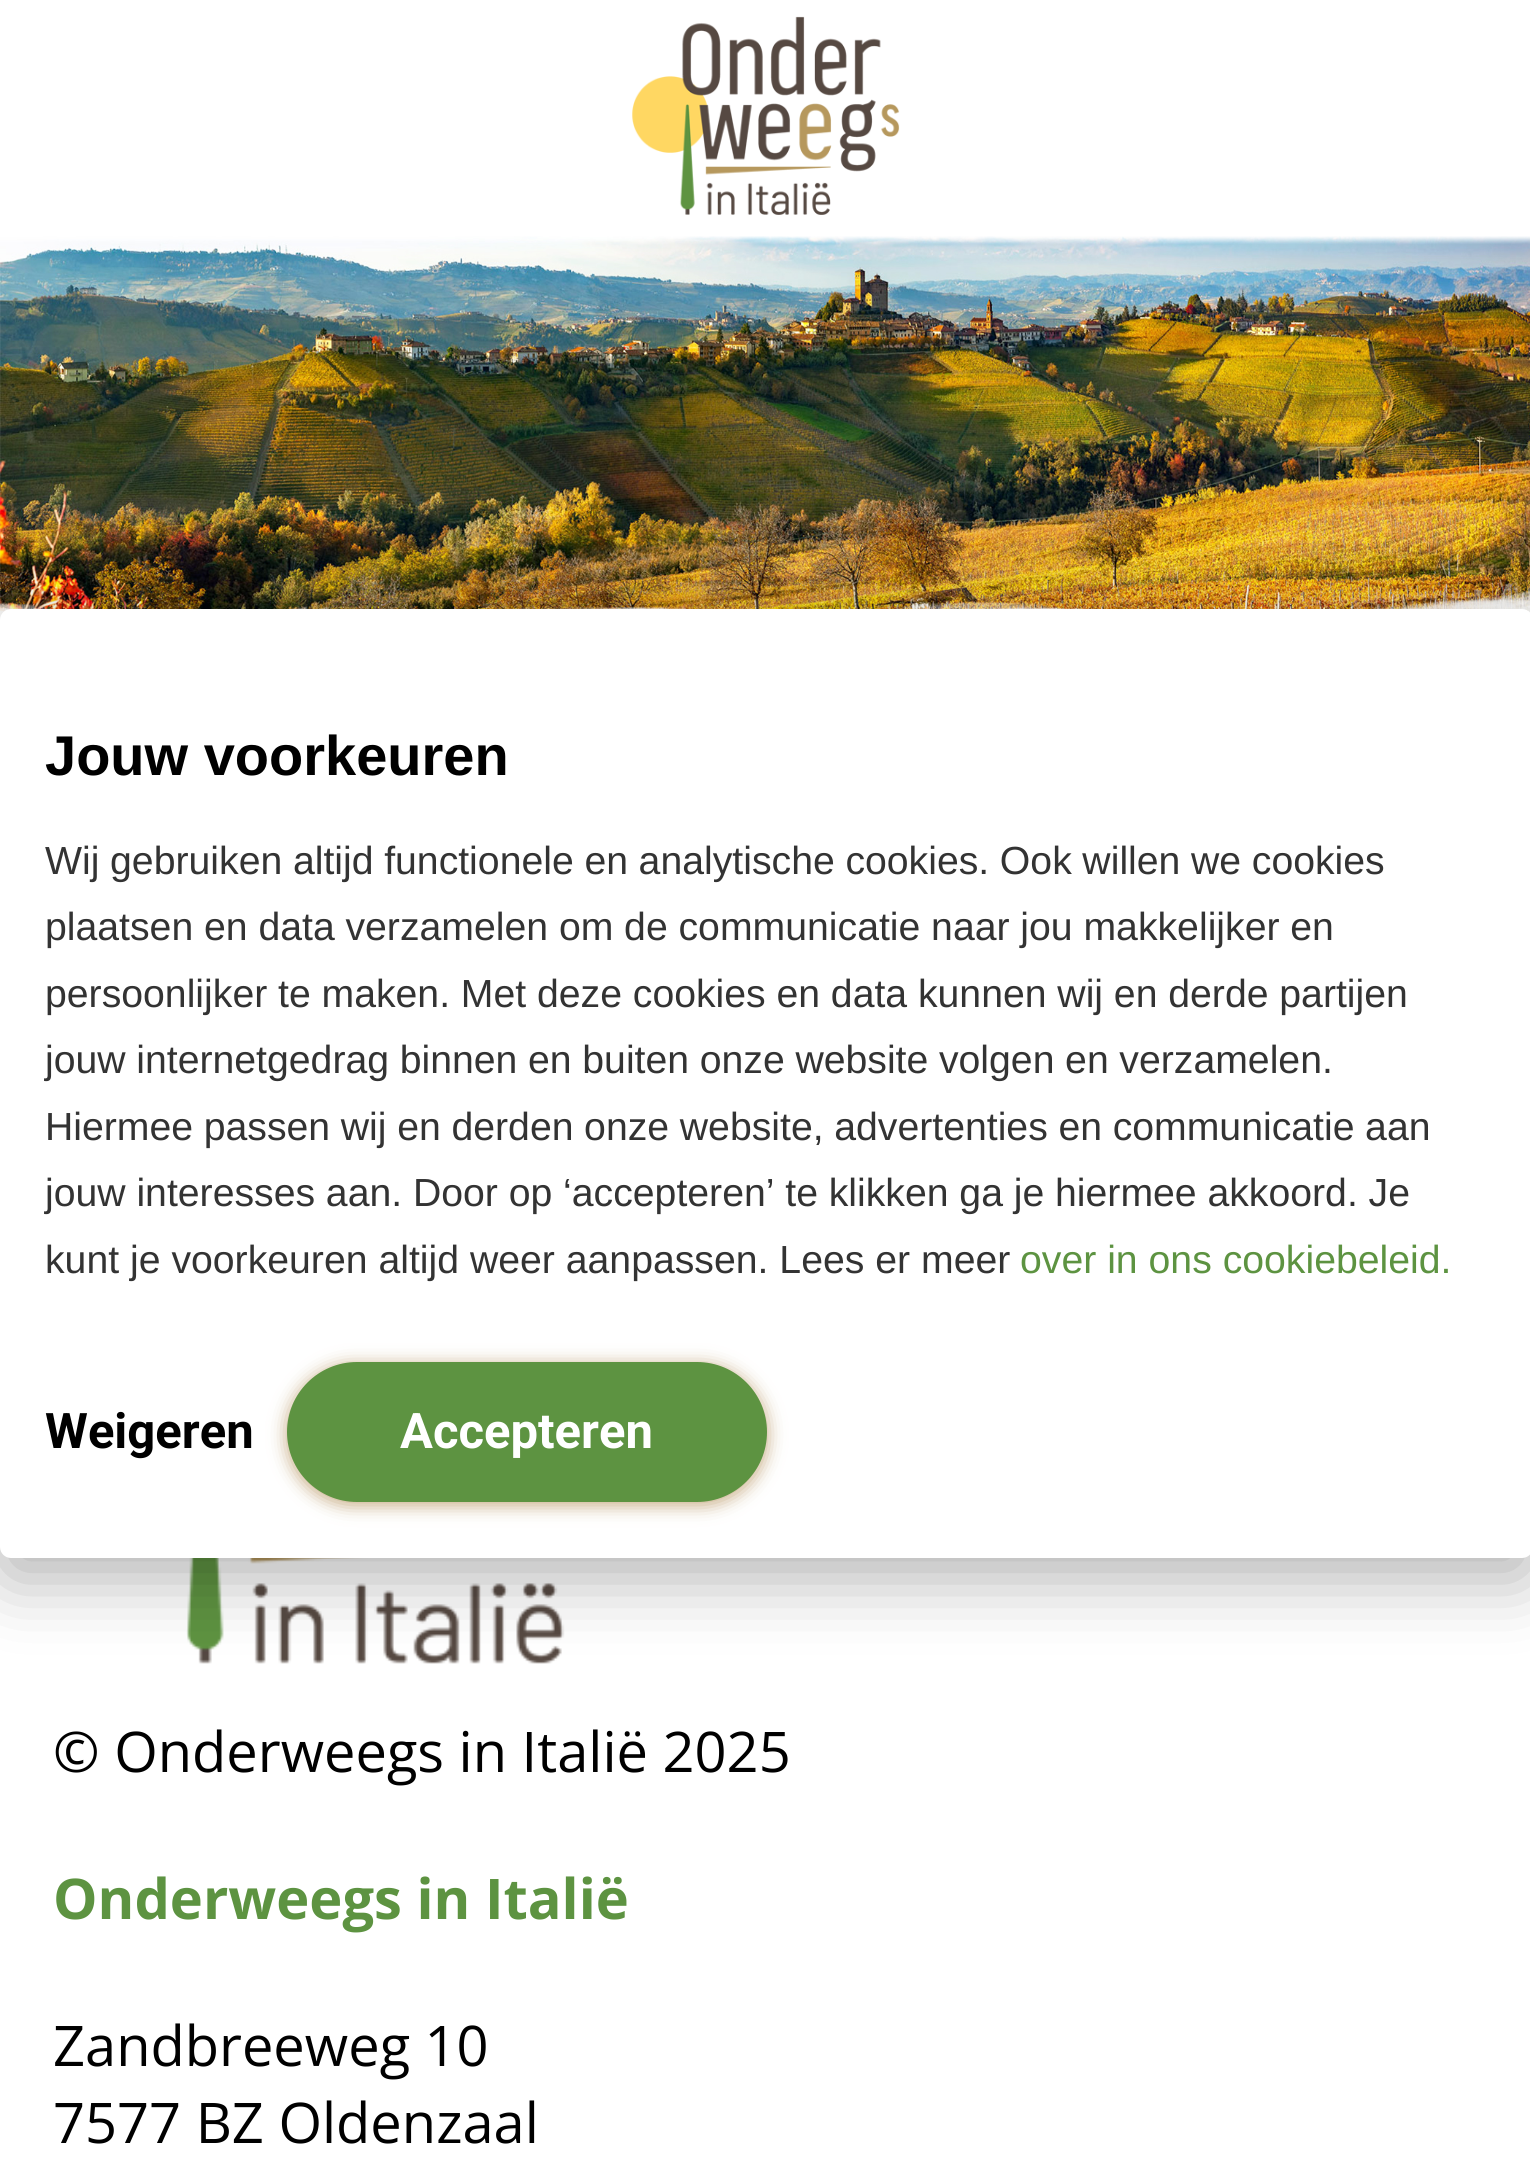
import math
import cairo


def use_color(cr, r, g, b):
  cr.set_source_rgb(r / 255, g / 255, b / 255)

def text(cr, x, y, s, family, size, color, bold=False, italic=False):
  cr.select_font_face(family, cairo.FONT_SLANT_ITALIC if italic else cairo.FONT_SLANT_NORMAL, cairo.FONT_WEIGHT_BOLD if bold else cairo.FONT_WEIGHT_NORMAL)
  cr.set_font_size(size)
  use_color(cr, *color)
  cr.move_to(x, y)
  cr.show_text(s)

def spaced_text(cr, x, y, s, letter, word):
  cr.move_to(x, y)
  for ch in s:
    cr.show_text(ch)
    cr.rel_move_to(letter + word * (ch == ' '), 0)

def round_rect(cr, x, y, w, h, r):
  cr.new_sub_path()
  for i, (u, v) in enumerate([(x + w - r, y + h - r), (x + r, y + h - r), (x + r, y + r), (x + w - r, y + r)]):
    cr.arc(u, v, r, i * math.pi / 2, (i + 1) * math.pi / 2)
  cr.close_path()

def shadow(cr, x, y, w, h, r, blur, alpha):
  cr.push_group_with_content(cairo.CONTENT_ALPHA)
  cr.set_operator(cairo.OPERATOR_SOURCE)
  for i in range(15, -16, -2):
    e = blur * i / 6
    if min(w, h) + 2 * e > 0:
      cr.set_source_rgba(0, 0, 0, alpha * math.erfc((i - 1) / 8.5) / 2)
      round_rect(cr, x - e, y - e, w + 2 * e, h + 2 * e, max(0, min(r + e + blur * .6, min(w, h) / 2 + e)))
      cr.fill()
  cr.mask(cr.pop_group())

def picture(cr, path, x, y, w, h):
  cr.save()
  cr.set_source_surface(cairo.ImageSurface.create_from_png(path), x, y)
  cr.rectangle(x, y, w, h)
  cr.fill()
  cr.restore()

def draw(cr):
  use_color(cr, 255, 255, 255)
  cr.paint()
  picture(cr, "img_01.png", 632, 16, 268, 199)
  picture(cr, "img_02.png", 0, 236, 1530, 384)
  picture(cr, "img_03.png", 186, 1558, 379, 106)
  use_color(cr, 0, 0, 0)
  shadow(cr, 0, 630, 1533, 949, 11, 35, 0.3)
  use_color(cr, 255, 255, 255)
  round_rect(cr, 0, 609, 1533, 949, 11)
  cr.fill()
  use_color(cr, 139, 83, 0)
  shadow(cr, 287, 1365, 480, 140, 70, 9, 0.5)
  use_color(cr, 93, 147, 65)
  round_rect(cr, 290.5, 1365.5, 473, 133, 66.5)
  cr.fill_preserve()
  cr.set_line_width(7)
  cr.stroke()
  text(cr, 45, 775, "Jouw voorkeuren", "Liberation Sans", 56, (0, 0, 0), bold=True)
  cr.select_font_face("Liberation Sans")
  cr.set_font_size(39.2)
  use_color(cr, 51, 51, 51)
  spaced_text(cr, 45, 874, "Wij gebruiken altijd functionele en analytische cookies. Ook willen we cookies", 0, -0.25)
  spaced_text(cr, 45, 940, "plaatsen en data verzamelen om de communicatie naar jou makkelijker en", 0, -0.1)
  spaced_text(cr, 45, 1007, "persoonlijker te maken. Met deze cookies en data kunnen wij en derde partijen", 0, -0.1)
  spaced_text(cr, 45, 1073, "jouw internetgedrag binnen en buiten onze website volgen en verzamelen.", 0, -0.25)
  spaced_text(cr, 45, 1140, "Hiermee passen wij en derden onze website, advertenties en communicatie aan", 0, -0.25)
  spaced_text(cr, 45, 1206, "jouw interesses aan. Door op ‘accepteren’ te klikken ga je hiermee akkoord. Je", 0, -0.1)
  text(cr, 45, 1273, "kunt je voorkeuren altijd weer aanpassen. Lees er meer", "Liberation Sans", 39.2, (51, 51, 51))
  text(cr, 1020, 1273, "over in ons cookiebeleid.", "Liberation Sans", 39.2, (93, 147, 65))
  text(cr, 45, 1448, "Weigeren", "Roboto", 49, (0, 0, 0), bold=True)
  text(cr, 400, 1448, "Accepteren", "Roboto", 49, (255, 255, 255), bold=True)
  text(cr, 53, 1772, "© Onderweegs in Italië 2025", "Open Sans", 56, (0, 0, 0))
  text(cr, 53, 1919, "Onderweegs in Italië", "Open Sans", 56, (93, 147, 65), bold=True)
  text(cr, 53, 2066, "Zandbreeweg 10", "Open Sans", 56, (0, 0, 0))
  text(cr, 53, 2143, "7577 BZ Oldenzaal", "Open Sans", 56, (0, 0, 0))


surface = cairo.ImageSurface(cairo.FORMAT_RGB24, 1530, 2168)
cr = cairo.Context(surface)
options = cairo.FontOptions()
options.set_hint_metrics(cairo.HINT_METRICS_OFF)
options.set_hint_style(cairo.HINT_STYLE_NONE)
cr.set_font_options(options)
cr.set_miter_limit(4)
draw(cr)
surface.write_to_png("out.png")
